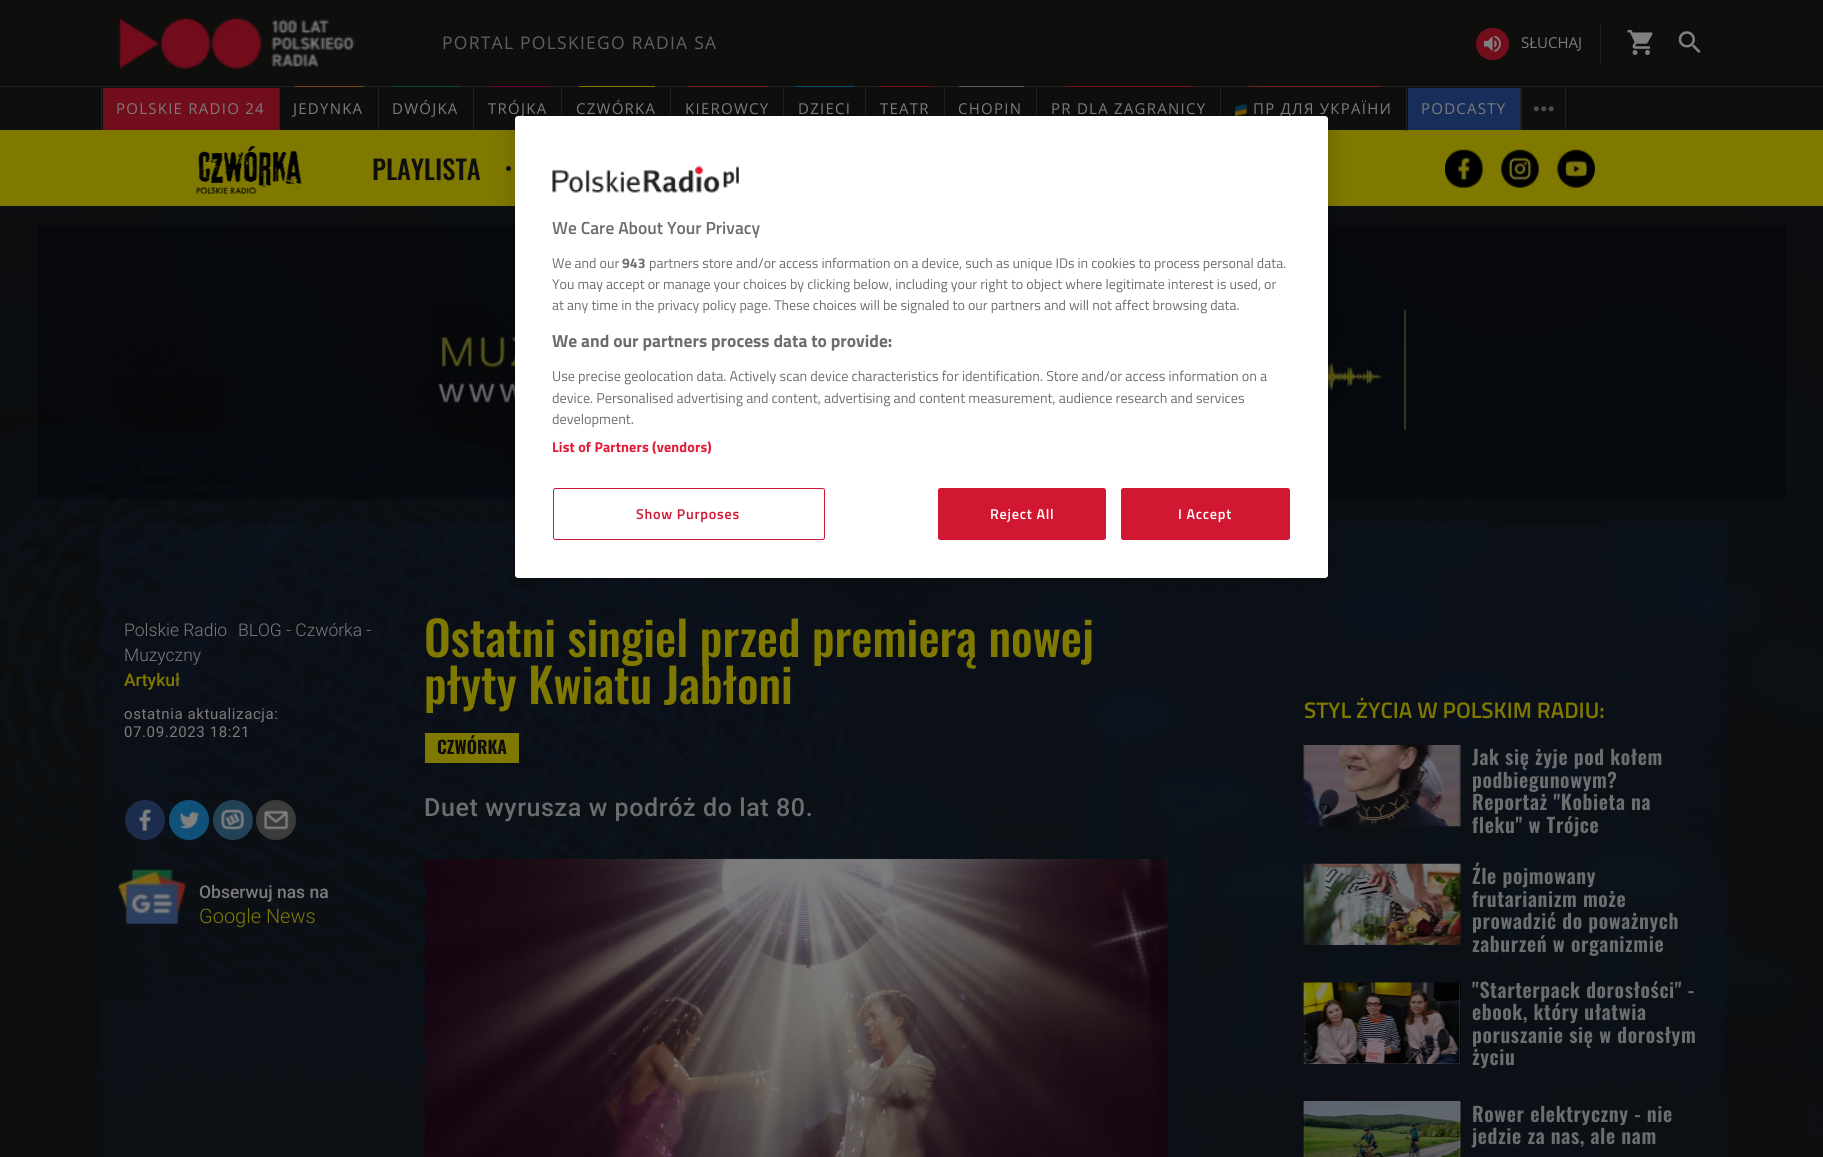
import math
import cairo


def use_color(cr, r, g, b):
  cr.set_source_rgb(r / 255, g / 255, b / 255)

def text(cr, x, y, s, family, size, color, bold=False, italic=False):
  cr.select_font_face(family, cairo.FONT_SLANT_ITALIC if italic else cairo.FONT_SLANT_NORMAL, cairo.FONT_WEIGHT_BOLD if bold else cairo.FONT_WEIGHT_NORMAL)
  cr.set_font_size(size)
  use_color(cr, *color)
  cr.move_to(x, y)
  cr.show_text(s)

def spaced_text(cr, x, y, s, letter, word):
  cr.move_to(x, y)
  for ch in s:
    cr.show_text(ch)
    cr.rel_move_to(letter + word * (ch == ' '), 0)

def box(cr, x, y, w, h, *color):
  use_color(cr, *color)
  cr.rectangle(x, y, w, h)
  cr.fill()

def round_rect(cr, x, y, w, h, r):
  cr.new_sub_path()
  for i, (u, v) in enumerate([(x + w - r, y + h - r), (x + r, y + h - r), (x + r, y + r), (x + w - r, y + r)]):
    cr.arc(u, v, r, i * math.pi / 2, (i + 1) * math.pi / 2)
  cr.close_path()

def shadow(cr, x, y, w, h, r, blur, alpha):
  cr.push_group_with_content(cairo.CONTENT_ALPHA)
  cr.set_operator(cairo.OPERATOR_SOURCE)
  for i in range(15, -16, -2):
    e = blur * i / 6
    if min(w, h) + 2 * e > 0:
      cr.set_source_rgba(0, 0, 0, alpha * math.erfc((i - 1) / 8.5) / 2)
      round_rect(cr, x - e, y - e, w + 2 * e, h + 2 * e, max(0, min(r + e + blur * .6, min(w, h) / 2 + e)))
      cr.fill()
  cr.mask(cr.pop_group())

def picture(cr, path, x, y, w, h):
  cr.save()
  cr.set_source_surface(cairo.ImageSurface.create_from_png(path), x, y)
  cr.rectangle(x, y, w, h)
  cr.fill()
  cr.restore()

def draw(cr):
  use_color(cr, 14, 14, 13)
  cr.paint()
  box(cr, 0, 86, 1823, 1, 34, 34, 34)
  picture(cr, "img_01.png", 118, 17, 237, 52)
  use_color(cr, 114, 13, 27)
  round_rect(cr, 1476, 28, 33, 32, 16)
  cr.fill()
  picture(cr, "img_02.png", 1484, 35, 17, 17)
  box(cr, 1600, 25, 1, 38, 34, 34, 34)
  picture(cr, "img_03.png", 1627, 30, 26, 25)
  picture(cr, "img_04.png", 1678, 31, 23, 22)
  box(cr, 101, 88, 1, 42, 34, 34, 34)
  box(cr, 103, 88, 176, 42, 114, 13, 27)
  box(cr, 279, 88, 1, 42, 34, 34, 34)
  box(cr, 378, 88, 1, 42, 34, 34, 34)
  box(cr, 295, 86, 69, 1, 123, 71, 15)
  box(cr, 473, 88, 1, 42, 34, 34, 34)
  box(cr, 393, 86, 67, 1, 0, 79, 49)
  box(cr, 561, 88, 1, 28, 34, 34, 34)
  box(cr, 488, 86, 61, 1, 108, 2, 57)
  box(cr, 670, 88, 1, 28, 34, 34, 34)
  box(cr, 579, 86, 76, 1, 128, 122, 1)
  box(cr, 783, 88, 1, 28, 34, 34, 34)
  box(cr, 688, 86, 80, 1, 122, 35, 32)
  box(cr, 865, 88, 1, 28, 34, 34, 34)
  box(cr, 796, 86, 58, 1, 0, 83, 116)
  box(cr, 944, 88, 1, 28, 34, 34, 34)
  box(cr, 878, 86, 55, 1, 114, 13, 27)
  box(cr, 1036, 88, 1, 28, 34, 34, 34)
  box(cr, 959, 86, 65, 1, 94, 94, 94)
  box(cr, 1220, 88, 1, 28, 34, 34, 34)
  box(cr, 1065, 86, 129, 1, 114, 13, 27)
  box(cr, 0, 130, 1823, 76, 128, 121, 0)
  box(cr, 1406, 88, 1, 43, 34, 34, 34)
  box(cr, 1249, 86, 130, 1, 122, 35, 32)
  picture(cr, "img_05.png", 1235, 103, 13, 13)
  box(cr, 1408, 88, 112, 42, 24, 46, 90)
  box(cr, 1520, 88, 2, 42, 34, 34, 34)
  box(cr, 1565, 88, 1, 42, 34, 34, 34)
  picture(cr, "img_06.png", 1533, 106, 21, 6)
  picture(cr, "img_07.png", 196, 146, 106, 48)
  use_color(cr, 14, 14, 13)
  cr.arc(508.5, 168.5, 2.5, 0, 2 * math.pi)
  cr.fill()
  picture(cr, "img_08.png", 1445, 149, 38, 39)
  picture(cr, "img_09.png", 1501, 149, 38, 39)
  picture(cr, "img_10.png", 1557, 149, 38, 39)
  box(cr, 38, 225, 1748, 274, 7, 7, 7)
  picture(cr, "img_12.png", 436, 306, 974, 137)
  box(cr, 100, 524, 1625, 633, 13, 16, 20)
  picture(cr, "img_11.png", 0, 206, 1823, 951)
  box(cr, 425, 733, 94, 30, 128, 121, 0)
  use_color(cr, 27, 44, 77)
  cr.arc(145, 820, 20, 0, 2 * math.pi)
  cr.fill()
  picture(cr, "img_13.png", 139, 809, 12, 22)
  use_color(cr, 15, 81, 121)
  cr.arc(189, 820, 20, 0, 2 * math.pi)
  cr.fill()
  picture(cr, "img_14.png", 179, 811, 21, 18)
  use_color(cr, 34, 66, 88)
  cr.arc(233, 820, 20, 0, 2 * math.pi)
  cr.fill()
  picture(cr, "img_15.png", 221, 809, 24, 21)
  use_color(cr, 59, 59, 59)
  cr.arc(276, 820, 20, 0, 2 * math.pi)
  cr.fill()
  picture(cr, "img_16.png", 264, 810, 25, 20)
  picture(cr, "img_17.png", 118, 869, 68, 55)
  picture(cr, "img_18.png", 425, 858, 743, 299)
  picture(cr, "img_19.png", 1303, 745, 158, 82)
  picture(cr, "img_20.png", 1303, 863, 158, 82)
  box(cr, 1304, 983, 156, 81, 115, 115, 115)
  picture(cr, "img_21.png", 1303, 982, 158, 82)
  box(cr, 1304, 1101, 156, 56, 115, 115, 115)
  picture(cr, "img_22.png", 1303, 1101, 158, 56)
  use_color(cr, 0, 0, 0)
  shadow(cr, 515, 116, 813, 462, 3, 11, 0.2)
  cr.select_font_face("Open Sans")
  cr.set_font_size(17.5)
  use_color(cr, 96, 96, 96)
  spaced_text(cr, 442, 49, "PORTAL POLSKIEGO RADIA SA", 1.25, 0)
  text(cr, 1521, 48, "SŁUCHAJ", "Open Sans", 15, (124, 123, 123))
  spaced_text(cr, 116, 114, "POLSKIE RADIO 24", 1.25, 0)
  spaced_text(cr, 293, 114, "JEDYNKA", 1.25, 0)
  spaced_text(cr, 392, 114, "DWÓJKA", 1.25, 0)
  spaced_text(cr, 488, 114, "TRÓJKA", 1.25, 0)
  spaced_text(cr, 576, 114, "CZWÓRKA", 1.25, 0)
  spaced_text(cr, 685, 114, "KIEROWCY", 1.25, 0)
  spaced_text(cr, 798, 114, "DZIECI", 1.25, 0)
  spaced_text(cr, 880, 114, "TEATR", 1.25, 0)
  spaced_text(cr, 958, 114, "CHOPIN", 1.25, 0)
  spaced_text(cr, 1051, 114, "PR DLA ZAGRANICY", 1.25, 0)
  spaced_text(cr, 1253, 114, "ПР ДЛЯ УКРАЇНИ", 1.25, 0)
  spaced_text(cr, 1421, 114, "PODCASTY", 1.25, 0)
  text(cr, 372, 180, "PLAYLISTA", "Oswald Medium", 26.5, (14, 14, 13))
  text(cr, 424, 657, "Ostatni singiel przed premierą nowej", "Oswald Medium", 47.5, (128, 121, 0))
  text(cr, 424, 704, "płyty Kwiatu Jabłoni", "Oswald Medium", 47.5, (128, 121, 0))
  cr.select_font_face("Roboto")
  cr.set_font_size(15)
  use_color(cr, 124, 123, 123)
  spaced_text(cr, 124, 719, "ostatnia aktualizacja:", 0.6, 0)
  spaced_text(cr, 124, 737, "07.09.2023 18:21", 0.6, 0)
  text(cr, 437, 754, "CZWÓRKA", "Oswald", 17.5, (14, 14, 13), bold=True)
  cr.select_font_face("Roboto Medium")
  cr.set_font_size(25)
  use_color(cr, 108, 109, 110)
  spaced_text(cr, 424, 816, "Duet wyrusza w podróż do lat 80.", 0.6, 0)
  text(cr, 199, 898, "Obserwuj nas na", "Roboto Medium", 17.5, (124, 123, 123))
  text(cr, 199, 923, "Google News", "Roboto Light", 20, (128, 121, 0))
  text(cr, 124, 636, "Polskie Radio", "Roboto Light", 17.5, (124, 123, 123))
  text(cr, 238, 636, "BLOG - Czwórka -", "Roboto Light", 17.5, (124, 123, 123))
  text(cr, 124, 661, "Muzyczny", "Roboto Light", 17.5, (124, 123, 123))
  text(cr, 124, 686, "Artykuł", "Roboto Medium", 17.5, (128, 121, 0))
  text(cr, 1304, 718, "STYL ŻYCIA W POLSKIM RADIU:", "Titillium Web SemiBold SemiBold", 22.5, (128, 121, 0))
  cr.select_font_face("Oswald SemiBold")
  cr.set_font_size(20)
  use_color(cr, 108, 109, 110)
  spaced_text(cr, 1472, 765, "Jak się żyje pod kołem", 0.6, 0)
  spaced_text(cr, 1472, 788, "podbiegunowym?", 0.6, 0)
  spaced_text(cr, 1472, 810, "Reportaż \"Kobieta na", 0.6, 0)
  spaced_text(cr, 1472, 833, "fleku\" w Trójce", 0.6, 0)
  spaced_text(cr, 1472, 884, "Źle pojmowany", 0.6, 0)
  spaced_text(cr, 1472, 907, "frutarianizm może", 0.6, 0)
  spaced_text(cr, 1472, 929, "prowadzić do poważnych", 0.6, 0)
  spaced_text(cr, 1472, 952, "zaburzeń w organizmie", 0.6, 0)
  spaced_text(cr, 1472, 998, "\"Starterpack dorosłości\" -", 0.6, 0)
  spaced_text(cr, 1472, 1020, "ebook, który ułatwia", 0.6, 0)
  spaced_text(cr, 1472, 1043, "poruszanie się w dorosłym", 0.6, 0)
  spaced_text(cr, 1472, 1065, "życiu", 0.6, 0)
  spaced_text(cr, 1472, 1122, "Rower elektryczny - nie", 0.6, 0)
  spaced_text(cr, 1472, 1144, "jedzie za nas, ale nam", 0.6, 0)
  use_color(cr, 255, 255, 255)
  round_rect(cr, 515, 116, 813, 462, 3)
  cr.fill()
  picture(cr, "img_23.png", 552, 166, 187, 27)
  text(cr, 552, 234, "We Care About Your Privacy", "Titillium Web SemiBold SemiBold", 17.5, (108, 109, 110))
  text(cr, 552, 268, "We and our", "Titillium Web", 14, (108, 109, 110))
  text(cr, 622, 268, "943", "Titillium Web", 14, (108, 109, 110), bold=True)
  text(cr, 649, 268, "partners store and/or access information on a device, such as unique IDs in cookies to process personal data.", "Titillium Web", 14, (108, 109, 110))
  text(cr, 552, 289, "You may accept or manage your choices by clicking below, including your right to object where legitimate interest is used, or", "Titillium Web", 14, (108, 109, 110))
  text(cr, 552, 310, "at any time in the privacy policy page. These choices will be signaled to our partners and will not affect browsing data.", "Titillium Web", 14, (108, 109, 110))
  text(cr, 552, 347, "We and our partners process data to provide:", "Titillium Web", 17.5, (108, 109, 110), bold=True)
  text(cr, 552, 381, "Use precise geolocation data. Actively scan device characteristics for identification. Store and/or access information on a", "Titillium Web", 14.23, (108, 109, 110))
  text(cr, 552, 403, "device. Personalised advertising and content, advertising and content measurement, audience research and services", "Titillium Web", 14.23, (108, 109, 110))
  text(cr, 552, 424, "development.", "Titillium Web", 14.23, (108, 109, 110))
  cr.select_font_face("Titillium Web", cairo.FONT_SLANT_NORMAL, cairo.FONT_WEIGHT_BOLD)
  use_color(cr, 227, 25, 54)
  spaced_text(cr, 552, 452, "List of Partners (vendors)", 0.15, 0)
  round_rect(cr, 553.5, 488.5, 271, 51, 2)
  use_color(cr, 210, 23, 51)
  cr.set_line_width(1)
  cr.stroke()
  cr.select_font_face("Titillium Web SemiBold SemiBold")
  spaced_text(cr, 636, 519, "Show Purposes", 0.75, 0)
  round_rect(cr, 938.5, 488.5, 167, 51, 2)
  cr.fill_preserve()
  cr.stroke()
  use_color(cr, 255, 255, 255)
  spaced_text(cr, 990, 519, "Reject All", 0.75, 0)
  use_color(cr, 210, 23, 51)
  round_rect(cr, 1121.5, 488.5, 168, 51, 2)
  cr.fill_preserve()
  cr.stroke()
  use_color(cr, 255, 255, 255)
  spaced_text(cr, 1178, 519, "I Accept", 0.75, 0)


surface = cairo.ImageSurface(cairo.FORMAT_RGB24, 1823, 1157)
cr = cairo.Context(surface)
options = cairo.FontOptions()
options.set_hint_metrics(cairo.HINT_METRICS_OFF)
options.set_hint_style(cairo.HINT_STYLE_NONE)
cr.set_font_options(options)
cr.set_miter_limit(4)
draw(cr)
surface.write_to_png("out.png")
